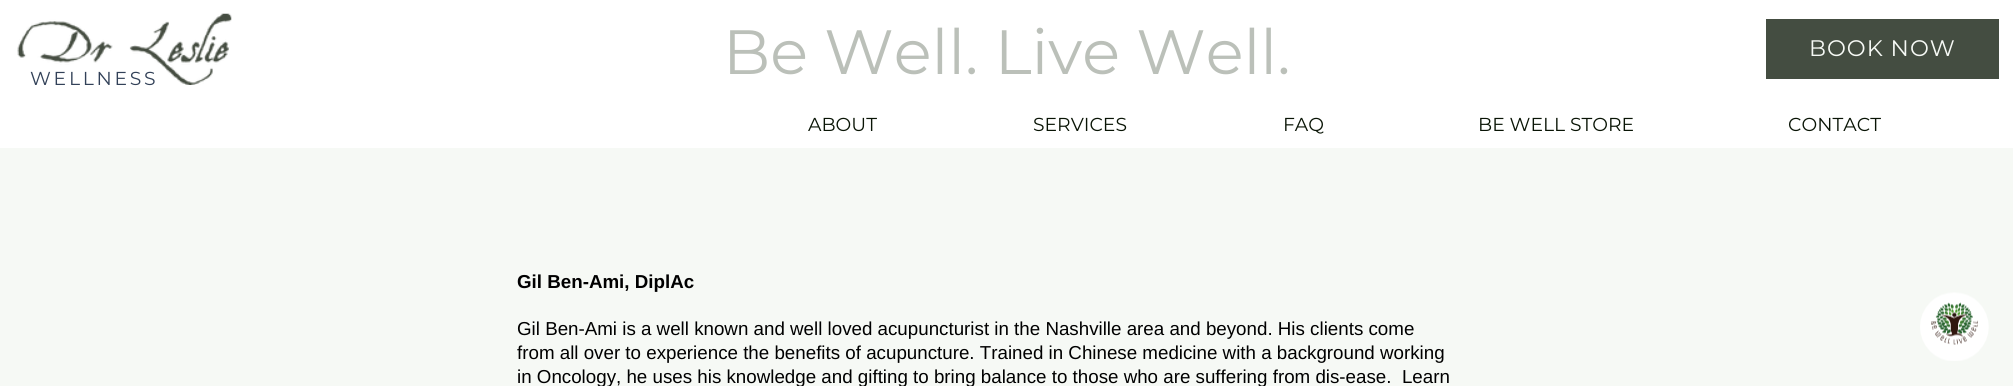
import math
import cairo


def use_color(cr, r, g, b):
  cr.set_source_rgb(r / 255, g / 255, b / 255)

def text(cr, x, y, s, family, size, color, bold=False, italic=False):
  cr.select_font_face(family, cairo.FONT_SLANT_ITALIC if italic else cairo.FONT_SLANT_NORMAL, cairo.FONT_WEIGHT_BOLD if bold else cairo.FONT_WEIGHT_NORMAL)
  cr.set_font_size(size)
  use_color(cr, *color)
  cr.move_to(x, y)
  cr.show_text(s)

def spaced_text(cr, x, y, s, letter, word):
  cr.move_to(x, y)
  for ch in s:
    cr.show_text(ch)
    cr.rel_move_to(letter + word * (ch == ' '), 0)

def box(cr, x, y, w, h, *color):
  use_color(cr, *color)
  cr.rectangle(x, y, w, h)
  cr.fill()

def picture(cr, path, x, y, w, h):
  cr.save()
  cr.set_source_surface(cairo.ImageSurface.create_from_png(path), x, y)
  cr.rectangle(x, y, w, h)
  cr.fill()
  cr.restore()

def draw(cr):
  use_color(cr, 246, 249, 245)
  cr.paint()
  box(cr, 0, 0, 2013, 148, 255, 255, 255)
  box(cr, 1766, 19, 233, 60, 68, 77, 65)
  picture(cr, "img_02.png", 1920, 292, 69, 69)
  text(cr, 723, 74, "Be Well. Live Well.", "Montserrat", 62.5, (187, 192, 185))
  cr.set_font_size(22.5)
  use_color(cr, 246, 249, 245)
  spaced_text(cr, 1809, 56, "BOOK NOW", 1, 0)
  cr.set_font_size(18.75)
  use_color(cr, 50, 65, 88)
  spaced_text(cr, 30, 85, "WELLNESS", 2.75, 0)
  picture(cr, "img_01.png", 17, 13, 215, 72)
  text(cr, 808, 131, "ABOUT", "Montserrat", 18.75, (9, 20, 5))
  text(cr, 1033, 131, "SERVICES", "Montserrat", 18.75, (9, 20, 5))
  text(cr, 1283, 131, "FAQ", "Montserrat", 18.75, (9, 20, 5))
  text(cr, 1478, 131, "BE WELL STORE", "Montserrat", 18.75, (9, 20, 5))
  text(cr, 1788, 131, "CONTACT", "Montserrat", 18.75, (9, 20, 5))
  text(cr, 517, 288, "Gil Ben-Ami, DiplAc", "Liberation Sans", 18.75, (0, 0, 0), bold=True)
  text(cr, 517, 335, "Gil Ben-Ami is a well known and well loved acupuncturist in the Nashville area and beyond. His clients come", "Liberation Sans", 18.75, (0, 0, 0))
  text(cr, 517, 359, "from all over to experience the benefits of acupuncture. Trained in Chinese medicine with a background working", "Liberation Sans", 18.75, (0, 0, 0))
  text(cr, 517, 383, "in Oncology, he uses his knowledge and gifting to bring balance to those who are suffering from dis-ease.  Learn", "Liberation Sans", 18.75, (0, 0, 0))


surface = cairo.ImageSurface(cairo.FORMAT_RGB24, 2013, 386)
cr = cairo.Context(surface)
options = cairo.FontOptions()
options.set_hint_metrics(cairo.HINT_METRICS_OFF)
options.set_hint_style(cairo.HINT_STYLE_NONE)
cr.set_font_options(options)
cr.set_miter_limit(4)
draw(cr)
surface.write_to_png("out.png")
